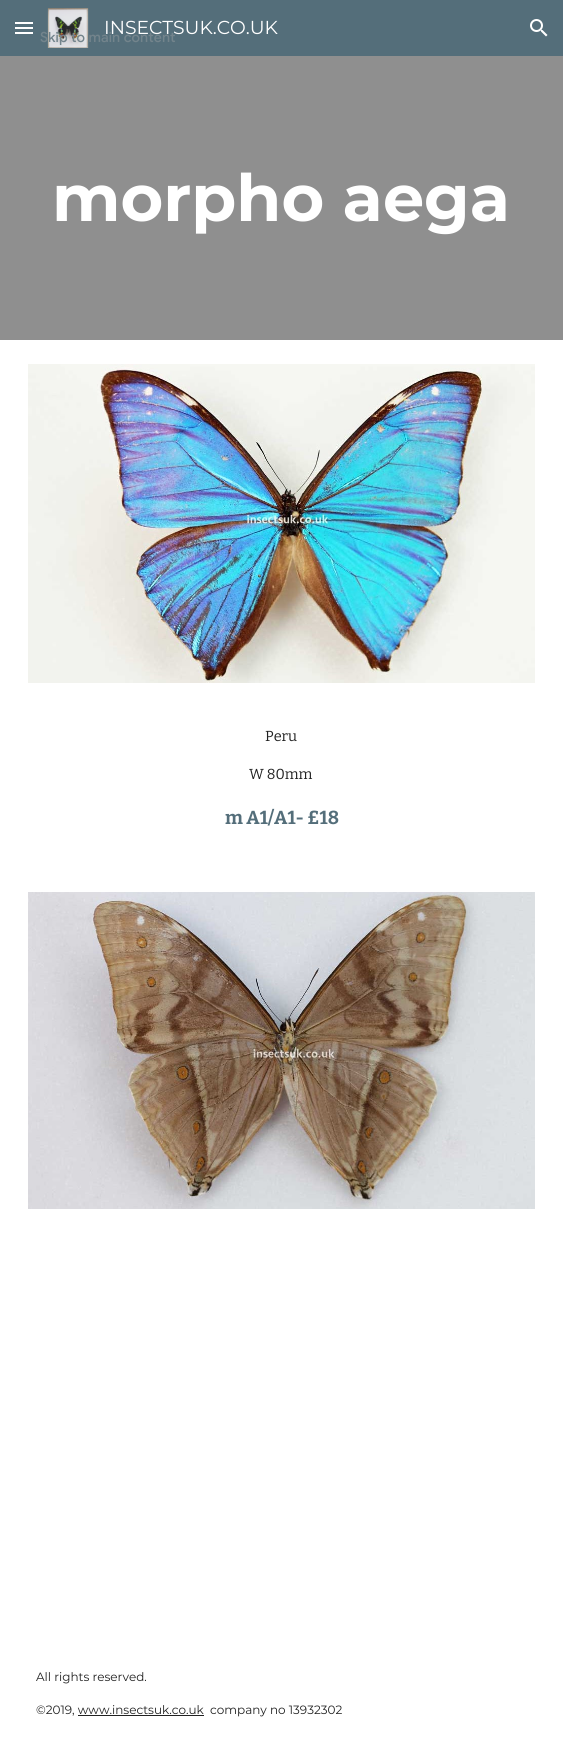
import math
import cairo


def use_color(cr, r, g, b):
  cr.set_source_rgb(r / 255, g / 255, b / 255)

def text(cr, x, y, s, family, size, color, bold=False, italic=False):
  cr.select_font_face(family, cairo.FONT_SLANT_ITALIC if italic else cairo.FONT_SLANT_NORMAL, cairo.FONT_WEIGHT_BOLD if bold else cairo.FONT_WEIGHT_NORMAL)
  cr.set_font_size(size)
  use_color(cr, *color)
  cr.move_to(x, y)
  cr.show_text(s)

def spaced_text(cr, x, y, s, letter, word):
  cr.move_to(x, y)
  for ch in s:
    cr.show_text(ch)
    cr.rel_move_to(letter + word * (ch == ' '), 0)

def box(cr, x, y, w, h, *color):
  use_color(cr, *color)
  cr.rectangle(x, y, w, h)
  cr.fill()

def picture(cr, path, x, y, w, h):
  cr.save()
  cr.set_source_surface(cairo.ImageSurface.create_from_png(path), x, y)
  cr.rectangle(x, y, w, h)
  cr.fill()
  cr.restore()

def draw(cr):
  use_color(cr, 255, 255, 255)
  cr.paint()
  box(cr, 0, 0, 563, 56, 84, 110, 122)
  box(cr, 15, 22, 18, 2, 255, 255, 255)
  box(cr, 15, 27, 18, 2, 255, 255, 255)
  box(cr, 15, 32, 18, 2, 255, 255, 255)
  picture(cr, "img_01.png", 47, 8, 42, 40)
  picture(cr, "img_02.png", 530, 19, 18, 18)
  box(cr, 0, 56, 563, 284, 143, 143, 143)
  picture(cr, "img_03.png", 28, 364, 507, 319)
  picture(cr, "img_04.png", 28, 892, 507, 317)
  box(cr, 78, 1715, 126, 1, 33, 33, 33)
  text(cr, 104, 34, "INSECTSUK.CO.UK", "Montserrat", 18.75, (255, 255, 255))
  text(cr, 52, 221, "morpho aega", "Montserrat", 65.25, (255, 255, 255), bold=True)
  text(cr, 265, 741, "Peru", "Bitter", 14.5, (33, 33, 33))
  text(cr, 249, 779, "W 80mm", "Bitter", 14.5, (33, 33, 33))
  text(cr, 225, 824, "m A1/A1- £18", "Bitter", 18.75, (84, 110, 122), bold=True)
  text(cr, 36, 1681, "All rights reserved.", "Montserrat", 12, (33, 33, 33))
  text(cr, 36, 1714, "©2019, www.insectsuk.co.uk", "Montserrat", 12, (33, 33, 33))
  text(cr, 210, 1714, "company no 13932302", "Montserrat", 12, (33, 33, 33))
  cr.select_font_face("Google Sans Medium")
  cr.set_font_size(14)
  use_color(cr, 115, 132, 140)
  spaced_text(cr, 40, 42, "Skip to main content", 0.1, 0)


surface = cairo.ImageSurface(cairo.FORMAT_RGB24, 563, 1749)
cr = cairo.Context(surface)
options = cairo.FontOptions()
options.set_hint_metrics(cairo.HINT_METRICS_OFF)
options.set_hint_style(cairo.HINT_STYLE_NONE)
cr.set_font_options(options)
cr.set_miter_limit(4)
draw(cr)
surface.write_to_png("out.png")
